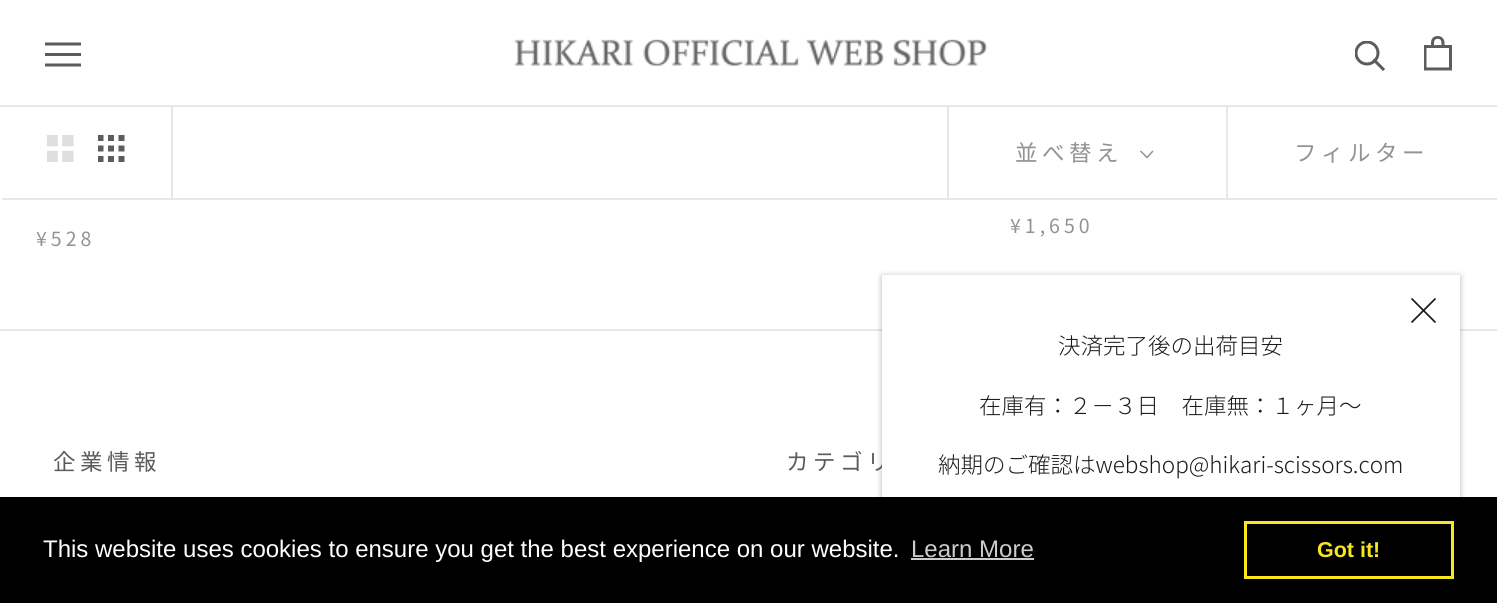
import math
import cairo


def use_color(cr, r, g, b):
  cr.set_source_rgb(r / 255, g / 255, b / 255)

def text(cr, x, y, s, family, size, color, bold=False, italic=False):
  cr.select_font_face(family, cairo.FONT_SLANT_ITALIC if italic else cairo.FONT_SLANT_NORMAL, cairo.FONT_WEIGHT_BOLD if bold else cairo.FONT_WEIGHT_NORMAL)
  cr.set_font_size(size)
  use_color(cr, *color)
  cr.move_to(x, y)
  cr.show_text(s)

def spaced_text(cr, x, y, s, letter, word):
  cr.move_to(x, y)
  for ch in s:
    cr.show_text(ch)
    cr.rel_move_to(letter + word * (ch == ' '), 0)

def box(cr, x, y, w, h, *color):
  use_color(cr, *color)
  cr.rectangle(x, y, w, h)
  cr.fill()

def round_rect(cr, x, y, w, h, r):
  cr.new_sub_path()
  for i, (u, v) in enumerate([(x + w - r, y + h - r), (x + r, y + h - r), (x + r, y + r), (x + w - r, y + r)]):
    cr.arc(u, v, r, i * math.pi / 2, (i + 1) * math.pi / 2)
  cr.close_path()

def shadow(cr, x, y, w, h, r, blur, alpha):
  cr.push_group_with_content(cairo.CONTENT_ALPHA)
  cr.set_operator(cairo.OPERATOR_SOURCE)
  for i in range(15, -16, -2):
    e = blur * i / 6
    if min(w, h) + 2 * e > 0:
      cr.set_source_rgba(0, 0, 0, alpha * math.erfc((i - 1) / 8.5) / 2)
      round_rect(cr, x - e, y - e, w + 2 * e, h + 2 * e, max(0, min(r + e + blur * .6, min(w, h) / 2 + e)))
      cr.fill()
  cr.mask(cr.pop_group())

def picture(cr, path, x, y, w, h):
  cr.save()
  cr.set_source_surface(cairo.ImageSurface.create_from_png(path), x, y)
  cr.rectangle(x, y, w, h)
  cr.fill()
  cr.restore()

def draw(cr):
  use_color(cr, 255, 255, 255)
  cr.paint()
  box(cr, 0, 105, 1497, 2, 231, 231, 231)
  use_color(cr, 92, 92, 92)
  cr.new_path()
  cr.move_to(45, 66.5)
  cr.line_to(45, 63.5)
  cr.line_to(81, 63.5)
  cr.line_to(81, 66.5)
  cr.close_path()
  cr.move_to(45, 53)
  cr.line_to(81, 53)
  cr.line_to(81, 56)
  cr.line_to(45, 56)
  cr.close_path()
  cr.move_to(45, 42.5)
  cr.line_to(81, 42.5)
  cr.line_to(81, 45.5)
  cr.line_to(45, 45.5)
  cr.close_path()
  cr.fill()
  picture(cr, "img_01.png", 514, 39, 474, 27)
  cr.new_path()
  cr.move_to(1383, 69)
  cr.line_to(1374.5, 60.5)
  cr.set_line_width(3)
  cr.set_line_cap(cairo.LINE_CAP_SQUARE)
  cr.stroke()
  cr.save()
  cr.rectangle(1355, 41, 31, 31)
  cr.clip()
  cr.arc(1367, 53, 11, 0, 2 * math.pi)
  cr.set_line_cap(cairo.LINE_CAP_BUTT)
  cr.stroke()
  cr.restore()
  picture(cr, "img_02.png", 1424, 36, 28, 35)
  use_color(cr, 231, 231, 231)
  cr.new_path()
  cr.move_to(2, 198)
  cr.line_to(2, 200)
  cr.line_to(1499, 200)
  cr.line_to(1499, 108)
  cr.line_to(1497, 108)
  cr.line_to(1497, 198)
  cr.close_path()
  cr.fill()
  box(cr, 171, 107, 2, 91, 231, 231, 231)
  picture(cr, "img_03.png", 47, 135, 27, 27)
  picture(cr, "img_04.png", 98, 135, 27, 27)
  box(cr, 947, 107, 2, 91, 231, 231, 231)
  cr.new_path()
  cr.move_to(1152.5, 151.5)
  cr.line_to(1147, 157.5)
  cr.line_to(1141, 151.5)
  use_color(cr, 147, 147, 147)
  cr.set_line_width(1.5)
  cr.stroke()
  box(cr, 1226, 107, 2, 91, 231, 231, 231)
  box(cr, 0, 329, 1497, 2, 231, 231, 231)
  use_color(cr, 0, 0, 0)
  shadow(cr, 882, 276, 578, 291, 0, 3, 0.3)
  box(cr, 0, 497, 1497, 106, 0, 0, 0)
  box(cr, 911, 558, 123, 2, 204, 204, 204)
  cr.rectangle(1245.5, 522.5, 207, 55)
  use_color(cr, 248, 231, 28)
  cr.set_line_width(3)
  cr.set_line_cap(cairo.LINE_CAP_BUTT)
  cr.stroke()
  cr.select_font_face("Noto Sans JP")
  cr.set_font_size(22.5)
  use_color(cr, 147, 147, 147)
  spaced_text(cr, 1015, 161, "並べ替え", 4.5, 0)
  spaced_text(cr, 1294, 161, "フィルター", 4.5, 0)
  cr.set_font_size(19.5)
  spaced_text(cr, 1010, 233, "¥1,650", 4, 0)
  spaced_text(cr, 36, 246, "¥528", 4, 0)
  cr.set_font_size(22.5)
  use_color(cr, 92, 92, 92)
  spaced_text(cr, 53, 470, "企業情報", 4.5, 0)
  spaced_text(cr, 786, 470, "カテゴリ", 4.5, 0)
  box(cr, 882, 275, 578, 222, 255, 255, 255)
  cr.new_path()
  cr.move_to(1435.5, 298.5)
  cr.line_to(1411.5, 322.5)
  cr.move_to(1435.5, 322.5)
  cr.line_to(1411.5, 298.5)
  use_color(cr, 28, 27, 27)
  cr.set_line_width(1.7)
  cr.stroke()
  text(cr, 1058, 354, "決済完了後の出荷目安", "Noto Sans JP Light", 22.5, (28, 27, 27))
  text(cr, 979, 414, "在庫有：２－３日　在庫無：１ヶ月～", "Noto Sans JP Light", 22.5, (28, 27, 27))
  text(cr, 938, 473, "納期のご確認はwebshop@hikari-scissors.com", "Noto Sans JP Light", 22.5, (28, 27, 27))
  text(cr, 43, 557, "This website uses cookies to ensure you get the best experience on our website.", "Liberation Sans", 24, (255, 255, 255))
  text(cr, 911, 557, "Learn More", "Liberation Sans", 24, (204, 204, 204))
  text(cr, 1317, 557, "Got it!", "Liberation Sans", 21.5, (248, 231, 28), bold=True)


surface = cairo.ImageSurface(cairo.FORMAT_RGB24, 1497, 603)
cr = cairo.Context(surface)
options = cairo.FontOptions()
options.set_hint_metrics(cairo.HINT_METRICS_OFF)
options.set_hint_style(cairo.HINT_STYLE_NONE)
cr.set_font_options(options)
cr.set_miter_limit(4)
draw(cr)
surface.write_to_png("out.png")
